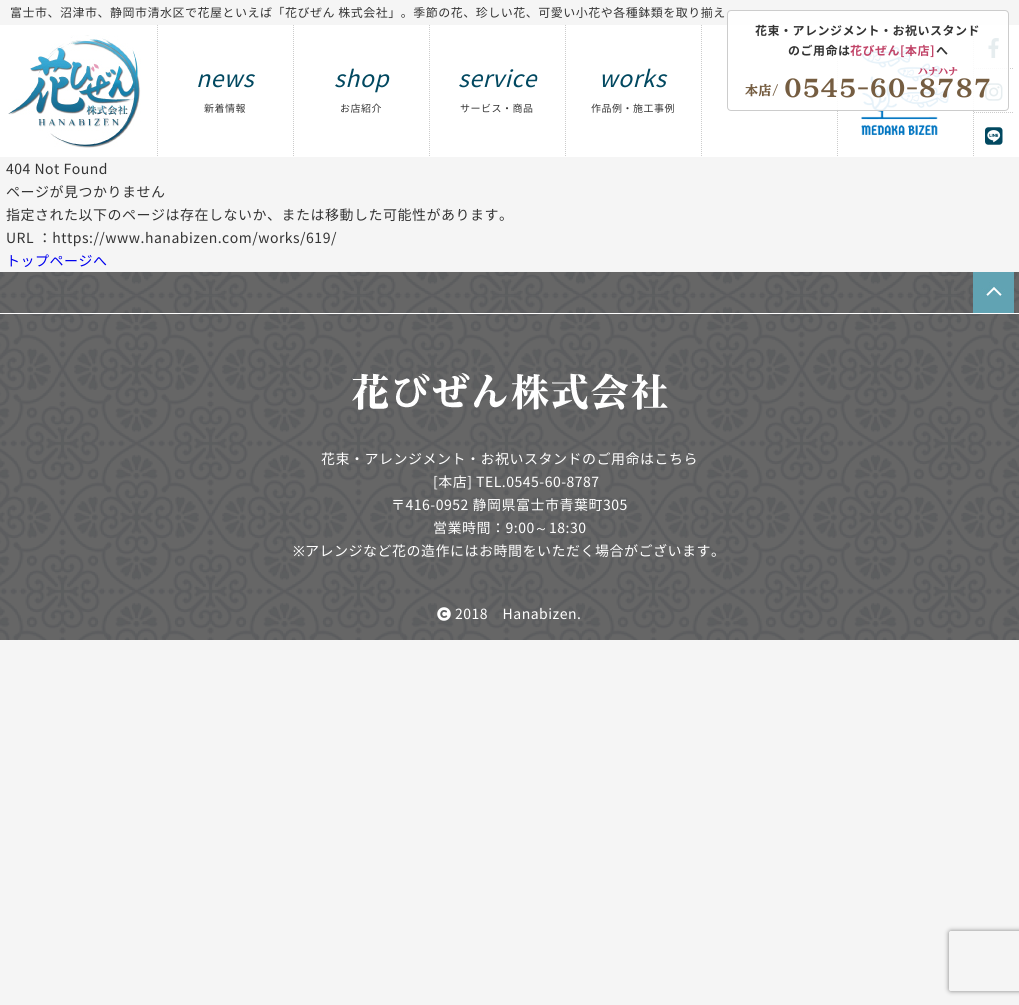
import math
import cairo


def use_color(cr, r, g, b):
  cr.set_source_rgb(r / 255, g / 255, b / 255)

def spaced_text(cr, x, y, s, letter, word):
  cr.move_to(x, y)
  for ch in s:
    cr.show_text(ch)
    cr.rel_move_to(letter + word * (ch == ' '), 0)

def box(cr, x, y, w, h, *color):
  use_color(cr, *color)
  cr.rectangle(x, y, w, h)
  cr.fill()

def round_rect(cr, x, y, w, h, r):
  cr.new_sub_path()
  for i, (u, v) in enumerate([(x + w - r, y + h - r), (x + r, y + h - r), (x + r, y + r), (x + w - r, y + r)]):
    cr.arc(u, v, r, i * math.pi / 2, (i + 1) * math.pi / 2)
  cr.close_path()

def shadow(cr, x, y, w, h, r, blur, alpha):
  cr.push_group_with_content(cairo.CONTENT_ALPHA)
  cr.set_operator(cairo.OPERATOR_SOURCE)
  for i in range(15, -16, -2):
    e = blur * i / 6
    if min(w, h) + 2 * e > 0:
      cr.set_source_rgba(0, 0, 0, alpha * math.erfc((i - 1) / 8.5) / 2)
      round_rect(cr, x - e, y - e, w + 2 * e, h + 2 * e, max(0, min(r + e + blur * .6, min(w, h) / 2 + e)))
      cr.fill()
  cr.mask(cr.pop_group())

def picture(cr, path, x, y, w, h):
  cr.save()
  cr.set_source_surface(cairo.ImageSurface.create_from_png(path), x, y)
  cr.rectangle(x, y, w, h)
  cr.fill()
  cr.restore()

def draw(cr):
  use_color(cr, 245, 245, 245)
  cr.paint()
  box(cr, 0, 25, 1019, 132, 255, 255, 255)
  picture(cr, "img_01.png", 8, 35, 133, 113)
  cr.new_path()
  cr.move_to(157.5, 25)
  cr.line_to(157.5, 157)
  use_color(cr, 204, 204, 204)
  cr.set_line_width(1)
  cr.set_dash([1, 1])
  cr.stroke()
  cr.new_path()
  cr.move_to(293.5, 25)
  cr.line_to(293.5, 157)
  cr.stroke()
  cr.new_path()
  cr.move_to(429.5, 25)
  cr.line_to(429.5, 157)
  cr.stroke()
  cr.new_path()
  cr.move_to(565.5, 25)
  cr.line_to(565.5, 157)
  cr.stroke()
  cr.new_path()
  cr.move_to(701.5, 25)
  cr.line_to(701.5, 157)
  cr.stroke()
  cr.new_path()
  cr.move_to(973.5, 25)
  cr.line_to(973.5, 157)
  cr.stroke()
  cr.new_path()
  cr.move_to(837.5, 25)
  cr.line_to(837.5, 157)
  cr.stroke()
  picture(cr, "img_02.png", 861, 47, 88, 88)
  cr.new_path()
  cr.move_to(974, 68.5)
  cr.line_to(1014, 68.5)
  cr.move_to(974, 112.5)
  cr.line_to(1014, 112.5)
  cr.stroke()
  picture(cr, "img_03.png", 988, 38, 11, 20)
  picture(cr, "img_04.png", 985, 83, 18, 18)
  picture(cr, "img_05.png", 985, 127, 18, 18)
  cr.set_source_rgba(1, 1, 1, 0.9)
  round_rect(cr, 727.5, 10.5, 281, 100, 3.5)
  cr.fill_preserve()
  use_color(cr, 204, 204, 204)
  cr.set_dash([])
  cr.stroke()
  picture(cr, "img_06.png", 0, 272, 1019, 368)
  box(cr, 0, 313, 1019, 1, 255, 255, 255)
  picture(cr, "img_07.png", 973, 272, 41, 41)
  picture(cr, "img_08.png", 352, 373, 316, 37)
  picture(cr, "img_09.png", 437, 607, 14, 14)
  cr.save()
  cr.set_fill_rule(cairo.FILL_RULE_EVEN_ODD)
  cr.new_path()
  cr.move_to(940, 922)
  cr.line_to(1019, 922)
  cr.line_to(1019, 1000)
  cr.line_to(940, 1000)
  cr.close_path()
  cr.move_to(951, 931)
  cr.line_to(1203, 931)
  cr.curve_to(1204, 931, 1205, 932, 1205, 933)
  cr.line_to(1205, 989)
  cr.curve_to(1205, 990, 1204, 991, 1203, 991)
  cr.line_to(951, 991)
  cr.curve_to(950, 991, 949, 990, 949, 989)
  cr.line_to(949, 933)
  cr.curve_to(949, 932, 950, 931, 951, 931)
  cr.close_path()
  cr.clip()
  use_color(cr, 128, 128, 128)
  shadow(cr, 949, 931, 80, 60, 2, 2.5, 1)
  cr.restore()
  cr.select_font_face("Noto Sans JP")
  cr.set_font_size(12)
  use_color(cr, 51, 51, 51)
  spaced_text(cr, 10, 17, "富士市、沼津市、静岡市清水区で花屋といえば「花びぜん 株式会社」。季節の花、珍しい花、可愛い小花や各種鉢類を取り揃え", 0.5, 0)
  cr.select_font_face("Noto Sans JP", cairo.FONT_SLANT_ITALIC)
  cr.set_font_size(23)
  use_color(cr, 1, 72, 96)
  spaced_text(cr, 196, 87, "news", 0.5, 0)
  cr.select_font_face("Noto Sans JP")
  cr.set_font_size(10)
  use_color(cr, 51, 51, 51)
  spaced_text(cr, 204, 112, "新着情報", 0.5, 0)
  cr.select_font_face("Noto Sans JP", cairo.FONT_SLANT_ITALIC)
  cr.set_font_size(23)
  use_color(cr, 1, 72, 96)
  spaced_text(cr, 334, 87, "shop", 0.5, 0)
  cr.select_font_face("Noto Sans JP")
  cr.set_font_size(10)
  use_color(cr, 51, 51, 51)
  spaced_text(cr, 340, 112, "お店紹介", 0.5, 0)
  cr.select_font_face("Noto Sans JP", cairo.FONT_SLANT_ITALIC)
  cr.set_font_size(23)
  use_color(cr, 1, 72, 96)
  spaced_text(cr, 458, 87, "service", 0.5, 0)
  cr.select_font_face("Noto Sans JP")
  cr.set_font_size(10)
  use_color(cr, 51, 51, 51)
  spaced_text(cr, 460, 112, "サービス・商品", 0.5, 0)
  cr.select_font_face("Noto Sans JP", cairo.FONT_SLANT_ITALIC)
  cr.set_font_size(23)
  use_color(cr, 1, 72, 96)
  spaced_text(cr, 599, 87, "works", 0.5, 0)
  cr.select_font_face("Noto Sans JP")
  cr.set_font_size(10)
  use_color(cr, 51, 51, 51)
  spaced_text(cr, 591, 112, "作品例・施工事例", 0.5, 0)
  cr.select_font_face("Noto Sans JP", cairo.FONT_SLANT_NORMAL, cairo.FONT_WEIGHT_BOLD)
  cr.set_font_size(12)
  spaced_text(cr, 755, 35, "花束・アレンジメント・お祝いスタンド", 0.5, 0)
  spaced_text(cr, 788, 55, "のご用命は", 0.5, 0)
  use_color(cr, 193, 68, 104)
  spaced_text(cr, 850, 55, "花びぜん[本店]", 0.5, 0)
  use_color(cr, 51, 51, 51)
  spaced_text(cr, 936, 55, "へ", 0.5, 0)
  cr.select_font_face("BIZ UDPMincho", cairo.FONT_SLANT_NORMAL, cairo.FONT_WEIGHT_BOLD)
  cr.set_font_size(10)
  use_color(cr, 193, 68, 104)
  spaced_text(cr, 918, 75, "ハナハナ", 0.5, 0)
  cr.set_font_size(13)
  use_color(cr, 117, 93, 65)
  spaced_text(cr, 745, 95, "本店/", 0.5, 0)
  cr.set_font_size(24)
  spaced_text(cr, 784, 97, "0545-60-8787", 0.5, 0)
  cr.select_font_face("Noto Sans JP")
  cr.set_font_size(14)
  use_color(cr, 51, 51, 51)
  spaced_text(cr, 6, 174, "404 Not Found", 0.5, 0)
  spaced_text(cr, 6, 197, "ページが見つかりません", 0.5, 0)
  spaced_text(cr, 6, 220, "指定された以下のページは存在しないか、または移動した可能性があります。", 0.5, 0)
  spaced_text(cr, 6, 243, "URL ：https://www.hanabizen.com/works/619/", 0.5, 0)
  use_color(cr, 0, 0, 238)
  spaced_text(cr, 6, 266, "トップページへ", 0.5, 0)
  use_color(cr, 255, 255, 255)
  spaced_text(cr, 321, 464, "花束・アレンジメント・お祝いスタンドのご用命はこちら", 0.5, 0)
  spaced_text(cr, 433, 487, "[本店] TEL.0545-60-8787", 0.5, 0)
  spaced_text(cr, 391, 510, "〒416-0952 静岡県富士市青葉町305", 0.5, 0)
  spaced_text(cr, 433, 533, "営業時間：9:00", 0.5, 0)
  cr.select_font_face("WenQuanYi Zen Hei Medium")
  spaced_text(cr, 534, 533, "～", 0.5, 0)
  cr.select_font_face("Noto Sans JP")
  spaced_text(cr, 549, 533, "18:30", 0.5, 0)
  cr.select_font_face("Noto Sans")
  spaced_text(cr, 293, 556, "※", 0.5, 0)
  cr.select_font_face("Noto Sans JP")
  spaced_text(cr, 305, 556, "アレンジなど花の造作にはお時間をいただく場合がございます。", 0.5, 0)
  spaced_text(cr, 455, 619, "2018　Hanabizen.", 0.5, 0)


surface = cairo.ImageSurface(cairo.FORMAT_RGB24, 1019, 1005)
cr = cairo.Context(surface)
options = cairo.FontOptions()
options.set_hint_metrics(cairo.HINT_METRICS_OFF)
options.set_hint_style(cairo.HINT_STYLE_NONE)
cr.set_font_options(options)
cr.set_miter_limit(4)
draw(cr)
surface.write_to_png("out.png")
